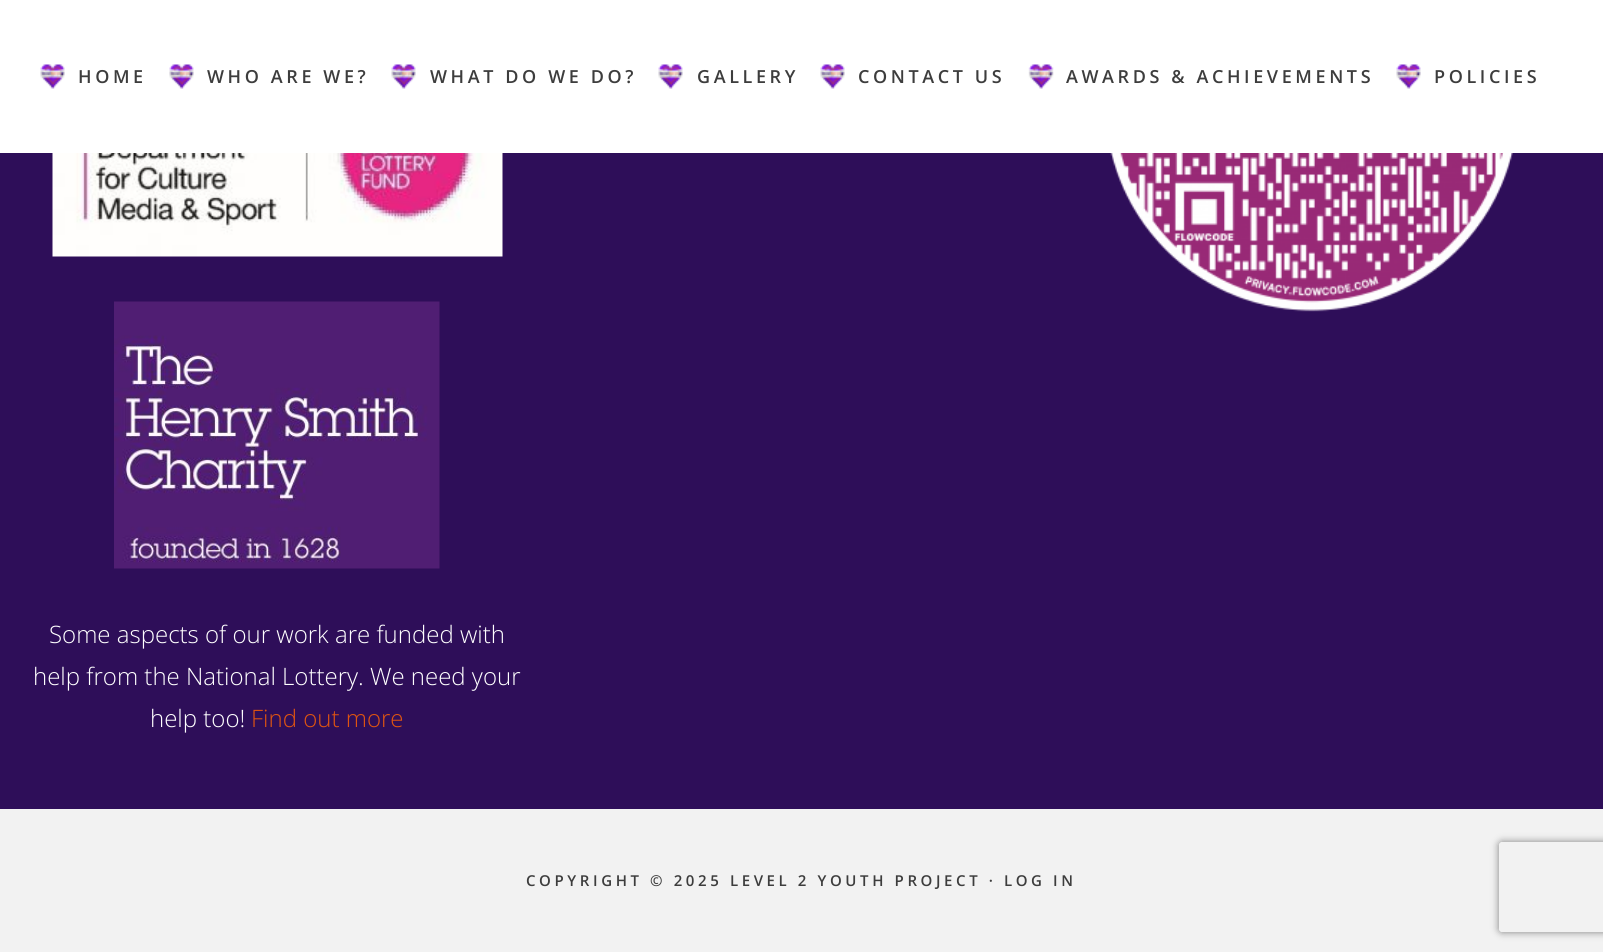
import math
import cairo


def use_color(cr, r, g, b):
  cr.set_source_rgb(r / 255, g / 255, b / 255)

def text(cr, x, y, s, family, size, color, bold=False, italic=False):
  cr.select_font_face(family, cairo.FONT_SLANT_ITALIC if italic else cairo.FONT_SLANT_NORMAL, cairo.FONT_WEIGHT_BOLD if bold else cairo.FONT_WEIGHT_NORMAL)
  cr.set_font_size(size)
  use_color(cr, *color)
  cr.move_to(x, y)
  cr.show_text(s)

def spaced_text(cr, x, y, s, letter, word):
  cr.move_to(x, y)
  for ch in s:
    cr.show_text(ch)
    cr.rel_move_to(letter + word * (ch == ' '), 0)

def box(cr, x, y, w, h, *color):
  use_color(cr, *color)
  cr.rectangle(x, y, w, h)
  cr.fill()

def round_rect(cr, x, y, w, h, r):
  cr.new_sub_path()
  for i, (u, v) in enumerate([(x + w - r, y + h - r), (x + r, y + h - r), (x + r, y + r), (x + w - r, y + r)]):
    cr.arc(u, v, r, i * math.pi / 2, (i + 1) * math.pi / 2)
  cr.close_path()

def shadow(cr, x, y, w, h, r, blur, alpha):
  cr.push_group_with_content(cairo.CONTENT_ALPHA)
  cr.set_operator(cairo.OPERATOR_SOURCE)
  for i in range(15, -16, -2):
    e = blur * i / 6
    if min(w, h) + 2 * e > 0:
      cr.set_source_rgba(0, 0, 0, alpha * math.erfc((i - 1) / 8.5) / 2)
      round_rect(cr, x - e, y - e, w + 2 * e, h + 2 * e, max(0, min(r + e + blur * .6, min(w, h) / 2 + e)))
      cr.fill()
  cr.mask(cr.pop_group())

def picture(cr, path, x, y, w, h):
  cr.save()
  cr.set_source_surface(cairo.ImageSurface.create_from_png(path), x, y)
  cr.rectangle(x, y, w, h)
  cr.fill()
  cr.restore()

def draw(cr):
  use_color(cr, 46, 14, 89)
  cr.paint()
  box(cr, 0, 0, 1603, 153, 255, 255, 255)
  picture(cr, "img_01.png", 40, 64, 25, 25)
  picture(cr, "img_01.png", 169, 64, 25, 25)
  picture(cr, "img_01.png", 391, 64, 25, 25)
  picture(cr, "img_01.png", 658, 64, 25, 25)
  picture(cr, "img_01.png", 820, 64, 25, 25)
  picture(cr, "img_02.png", 1028, 64, 26, 25)
  picture(cr, "img_03.png", 1396, 64, 25, 25)
  picture(cr, "img_04.png", 1110, 153, 403, 159)
  picture(cr, "img_05.png", 52, 153, 451, 104)
  picture(cr, "img_06.png", 114, 301, 326, 268)
  box(cr, 0, 809, 1603, 143, 242, 242, 242)
  cr.save()
  cr.set_fill_rule(cairo.FILL_RULE_EVEN_ODD)
  cr.new_path()
  cr.move_to(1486, 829)
  cr.line_to(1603, 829)
  cr.line_to(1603, 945)
  cr.line_to(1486, 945)
  cr.close_path()
  cr.move_to(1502, 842)
  cr.line_to(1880, 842)
  cr.curve_to(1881.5, 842, 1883, 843.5, 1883, 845)
  cr.line_to(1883, 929)
  cr.curve_to(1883, 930.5, 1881.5, 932, 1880, 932)
  cr.line_to(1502, 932)
  cr.curve_to(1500.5, 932, 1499, 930.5, 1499, 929)
  cr.line_to(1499, 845)
  cr.curve_to(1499, 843.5, 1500.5, 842, 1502, 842)
  cr.close_path()
  cr.clip()
  use_color(cr, 128, 128, 128)
  shadow(cr, 1499, 842, 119, 90, 3, 4, 1)
  cr.restore()
  cr.select_font_face("Open Sans SemiBold")
  cr.set_font_size(18)
  use_color(cr, 61, 61, 61)
  spaced_text(cr, 78, 83, "HOME", 3.6, 0)
  spaced_text(cr, 207, 83, "WHO ARE WE?", 3.6, 0)
  spaced_text(cr, 430, 83, "WHAT DO WE DO?", 3.6, 0)
  spaced_text(cr, 697, 83, "GALLERY", 3.6, 0)
  spaced_text(cr, 858, 83, "CONTACT US", 3.6, 0)
  spaced_text(cr, 1066, 83, "AWARDS & ACHIEVEMENTS", 3.6, 0)
  spaced_text(cr, 1434, 83, "POLICIES", 3.6, 0)
  text(cr, 49, 643, "Some aspects of our work are funded with", "Open Sans Light", 24, (255, 255, 255))
  text(cr, 33, 685, "help from the National Lottery. We need your", "Open Sans Light", 24, (255, 255, 255))
  text(cr, 150, 727, "help too!", "Open Sans Light", 24, (255, 255, 255))
  text(cr, 251, 727, "Find out more", "Open Sans Light", 24, (224, 85, 16))
  cr.select_font_face("Open Sans SemiBold")
  cr.set_font_size(15)
  use_color(cr, 61, 61, 61)
  spaced_text(cr, 526, 886, "COPYRIGHT © 2025 LEVEL 2 YOUTH PROJECT · LOG IN", 3.6, 0)


surface = cairo.ImageSurface(cairo.FORMAT_RGB24, 1603, 952)
cr = cairo.Context(surface)
options = cairo.FontOptions()
options.set_hint_metrics(cairo.HINT_METRICS_OFF)
options.set_hint_style(cairo.HINT_STYLE_NONE)
cr.set_font_options(options)
cr.set_miter_limit(4)
draw(cr)
surface.write_to_png("out.png")
